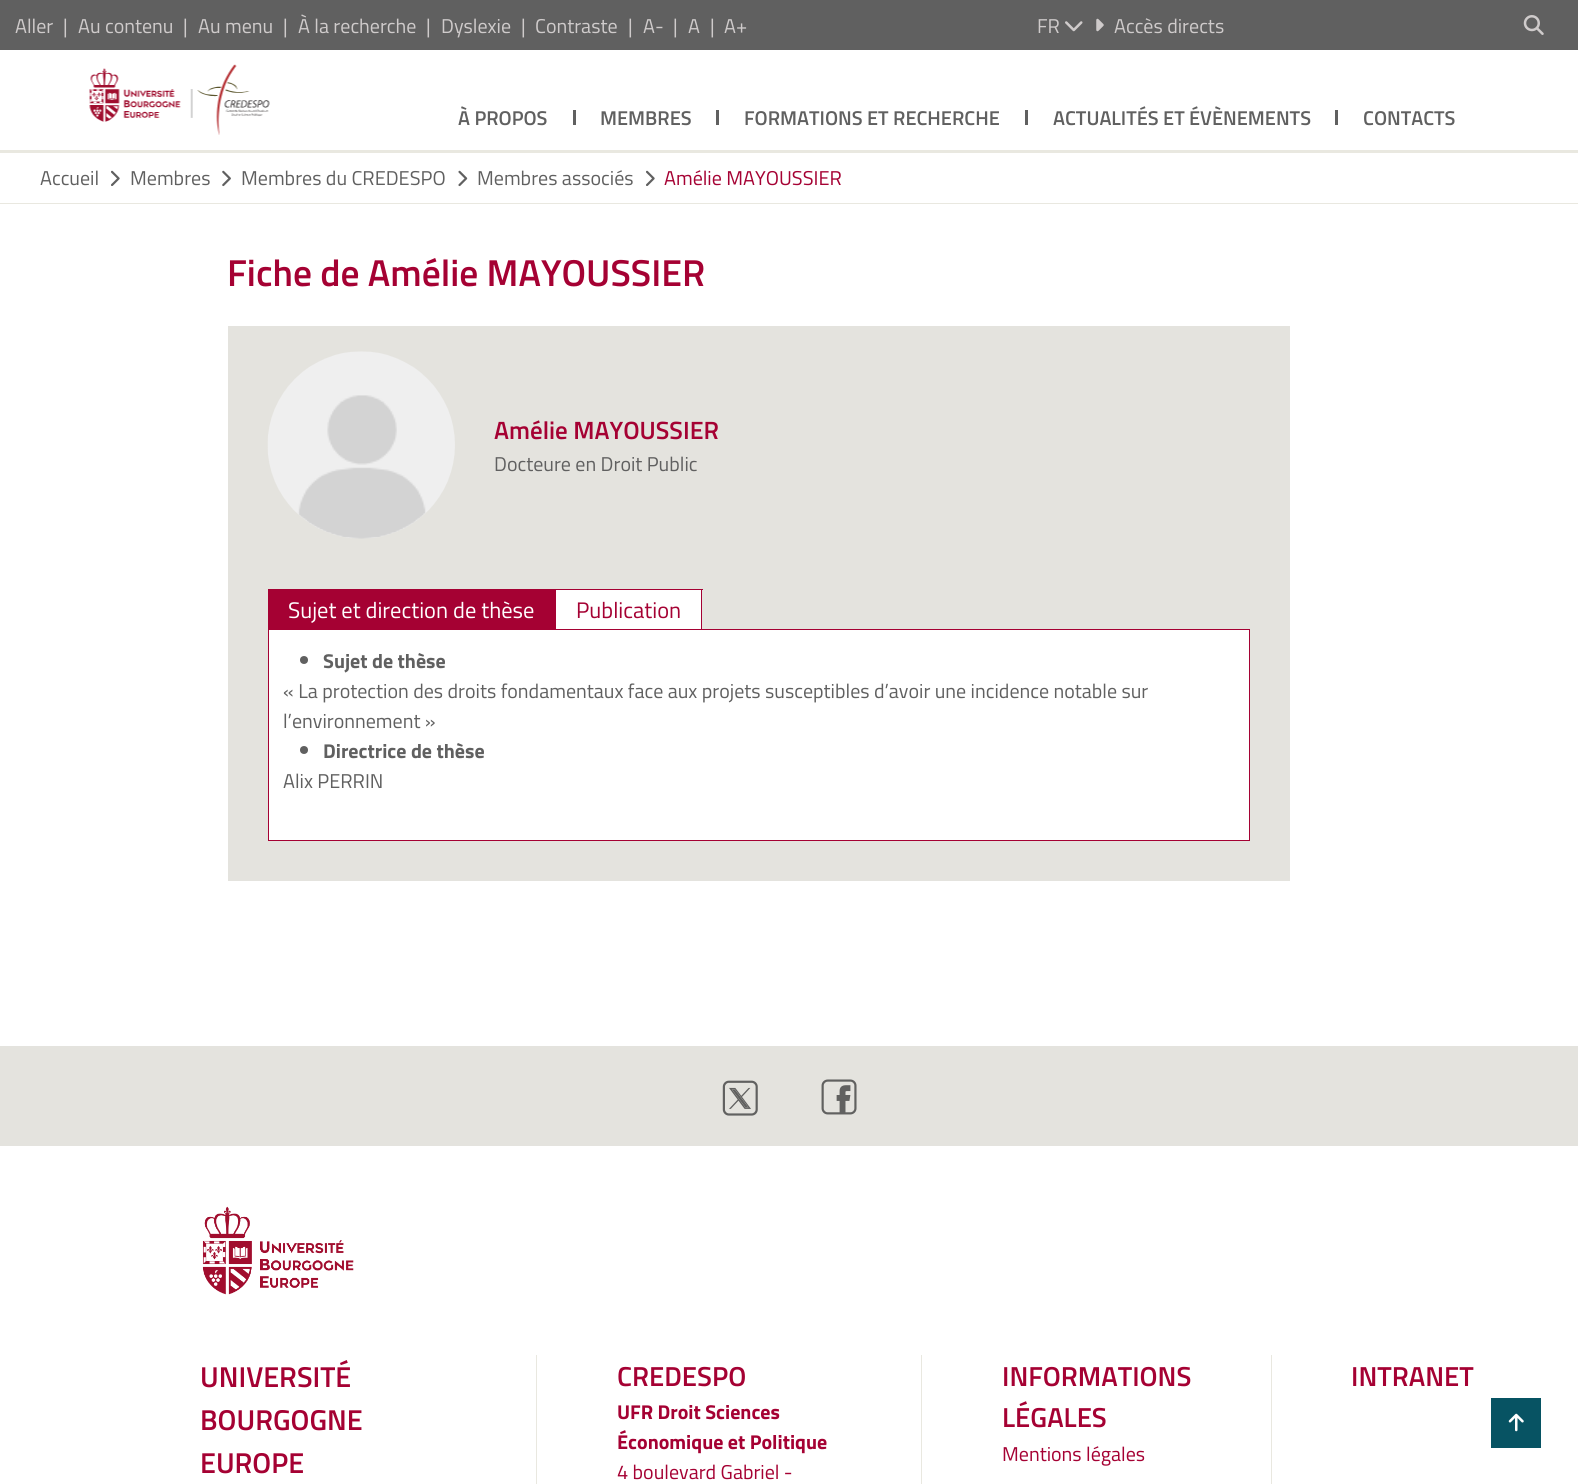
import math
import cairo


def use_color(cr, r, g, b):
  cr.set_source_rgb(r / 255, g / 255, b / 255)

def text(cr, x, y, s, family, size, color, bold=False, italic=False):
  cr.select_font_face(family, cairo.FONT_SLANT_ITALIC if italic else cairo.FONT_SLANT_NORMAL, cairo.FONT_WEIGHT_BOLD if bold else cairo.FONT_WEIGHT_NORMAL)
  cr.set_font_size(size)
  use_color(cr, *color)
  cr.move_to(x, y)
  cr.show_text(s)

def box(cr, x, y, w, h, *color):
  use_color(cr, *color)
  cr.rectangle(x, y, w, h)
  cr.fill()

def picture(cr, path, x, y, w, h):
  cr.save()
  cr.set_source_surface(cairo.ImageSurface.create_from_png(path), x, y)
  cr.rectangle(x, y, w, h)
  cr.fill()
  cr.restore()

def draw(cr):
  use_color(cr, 255, 255, 255)
  cr.paint()
  box(cr, 0, 0, 1578, 50, 96, 96, 96)
  picture(cr, "img_01.png", 1065, 21, 18, 11)
  picture(cr, "img_02.png", 1096, 18, 8, 14)
  picture(cr, "img_03.png", 1523, 15, 21, 20)
  box(cr, 0, 150, 1578, 3, 233, 232, 224)
  picture(cr, "img_04.png", 89, 64, 181, 71)
  box(cr, 573, 110, 3, 15, 96, 96, 96)
  box(cr, 716, 110, 3, 15, 96, 96, 96)
  box(cr, 1025, 110, 3, 15, 96, 96, 96)
  box(cr, 1335, 110, 3, 15, 96, 96, 96)
  box(cr, 0, 203, 1578, 1, 233, 232, 224)
  picture(cr, "img_05.png", 111, 170, 9, 16)
  picture(cr, "img_06.png", 222, 170, 9, 17)
  picture(cr, "img_07.png", 458, 170, 10, 17)
  picture(cr, "img_05.png", 646, 170, 9, 16)
  box(cr, 228, 326, 1062, 555, 228, 227, 222)
  picture(cr, "img_08.png", 267, 351, 188, 188)
  box(cr, 269, 590, 286, 39, 165, 1, 51)
  box(cr, 268, 589, 435, 1, 165, 1, 51)
  box(cr, 268, 589, 1, 40, 165, 1, 51)
  box(cr, 556, 590, 145, 39, 255, 255, 255)
  box(cr, 701, 589, 1, 40, 165, 1, 51)
  box(cr, 555, 589, 1, 40, 165, 1, 51)
  use_color(cr, 255, 255, 255)
  cr.rectangle(268.5, 629.5, 981, 211)
  cr.fill_preserve()
  use_color(cr, 165, 1, 51)
  cr.set_line_width(1)
  cr.stroke()
  use_color(cr, 96, 96, 96)
  cr.arc(304, 660, 4, 0, 2 * math.pi)
  cr.fill()
  cr.arc(304, 750, 4, 0, 2 * math.pi)
  cr.fill()
  box(cr, 0, 1046, 1578, 100, 228, 227, 222)
  picture(cr, "img_09.png", 722, 1080, 36, 36)
  picture(cr, "img_10.png", 821, 1079, 36, 36)
  picture(cr, "img_11.png", 202, 1206, 152, 89)
  box(cr, 536, 1355, 1, 129, 233, 232, 224)
  box(cr, 921, 1355, 1, 129, 233, 232, 224)
  box(cr, 1271, 1355, 1, 129, 233, 232, 224)
  box(cr, 1491, 1398, 50, 50, 7, 83, 99)
  picture(cr, "img_12.png", 1508, 1413, 16, 19)
  text(cr, 15, 33, "Aller", "Titillium Web", 20, (207, 203, 203))
  text(cr, 63, 33, "|", "Titillium Web", 20, (207, 203, 203))
  text(cr, 78, 33, "Au contenu", "Titillium Web", 20, (207, 203, 203))
  text(cr, 183, 33, "|", "Titillium Web", 20, (207, 203, 203))
  text(cr, 198, 33, "Au menu", "Titillium Web", 20, (207, 203, 203))
  text(cr, 283, 33, "|", "Titillium Web", 20, (207, 203, 203))
  text(cr, 298, 33, "À la recherche", "Titillium Web", 20, (207, 203, 203))
  text(cr, 426, 33, "|", "Titillium Web", 20, (207, 203, 203))
  text(cr, 441, 33, "Dyslexie", "Titillium Web", 20, (207, 203, 203))
  text(cr, 521, 33, "|", "Titillium Web", 20, (207, 203, 203))
  text(cr, 535, 33, "Contraste", "Titillium Web", 20, (207, 203, 203))
  text(cr, 628, 33, "|", "Titillium Web", 20, (207, 203, 203))
  text(cr, 643, 33, "A-", "Titillium Web", 20, (207, 203, 203))
  text(cr, 673, 33, "|", "Titillium Web", 20, (207, 203, 203))
  text(cr, 688, 33, "A", "Titillium Web", 20, (207, 203, 203))
  text(cr, 710, 33, "|", "Titillium Web", 20, (207, 203, 203))
  text(cr, 724, 33, "A+", "Titillium Web", 20, (207, 203, 203))
  text(cr, 1037, 33, "FR", "Titillium Web", 20, (207, 203, 203))
  text(cr, 1114, 33, "Accès directs", "Titillium Web", 20, (207, 203, 203))
  text(cr, 458, 125, "À PROPOS", "Titillium Web SemiBold", 20, (96, 96, 96))
  text(cr, 600, 125, "MEMBRES", "Titillium Web SemiBold", 20, (96, 96, 96))
  text(cr, 744, 125, "FORMATIONS ET RECHERCHE", "Titillium Web SemiBold", 20, (96, 96, 96))
  text(cr, 1053, 125, "ACTUALITÉS ET ÉVÈNEMENTS", "Titillium Web SemiBold", 20, (96, 96, 96))
  text(cr, 1363, 125, "CONTACTS", "Titillium Web SemiBold", 20, (96, 96, 96))
  text(cr, 40, 185, "Accueil", "Titillium Web", 20, (96, 96, 96))
  text(cr, 130, 185, "Membres", "Titillium Web", 20, (96, 96, 96))
  text(cr, 241, 185, "Membres du CREDESPO", "Titillium Web", 20, (96, 96, 96))
  text(cr, 477, 185, "Membres associés", "Titillium Web", 20, (96, 96, 96))
  text(cr, 664, 185, "Amélie MAYOUSSIER", "Titillium Web", 20, (165, 1, 51))
  text(cr, 227, 286, "Fiche de Amélie MAYOUSSIER", "Titillium Web SemiBold", 37.5, (165, 1, 51))
  text(cr, 494, 439, "Amélie MAYOUSSIER", "Titillium Web SemiBold", 25, (165, 1, 51))
  text(cr, 494, 471, "Docteure en Droit Public", "Titillium Web", 20, (96, 96, 96))
  text(cr, 288, 618, "Sujet et direction de thèse", "Titillium Web", 22.5, (255, 255, 255))
  text(cr, 576, 618, "Publication", "Titillium Web", 22.5, (165, 1, 51))
  text(cr, 323, 668, "Sujet de thèse", "Titillium Web", 20, (96, 96, 96), bold=True)
  text(cr, 283, 698, "« La protection des droits fondamentaux face aux projets susceptibles d’avoir une incidence notable sur", "Titillium Web", 20, (96, 96, 96))
  text(cr, 283, 728, "l’environnement »", "Titillium Web", 20, (96, 96, 96))
  text(cr, 323, 758, "Directrice de thèse", "Titillium Web", 20, (96, 96, 96), bold=True)
  text(cr, 283, 788, "Alix PERRIN", "Titillium Web", 20, (96, 96, 96))
  text(cr, 200, 1387, "UNIVERSITÉ", "Titillium Web SemiBold", 28.75, (165, 1, 51))
  text(cr, 200, 1430, "BOURGOGNE", "Titillium Web SemiBold", 28.75, (165, 1, 51))
  text(cr, 200, 1473, "EUROPE", "Titillium Web SemiBold", 28.75, (165, 1, 51))
  text(cr, 617, 1386, "CREDESPO", "Titillium Web SemiBold", 27.5, (165, 1, 51))
  text(cr, 617, 1419, "UFR Droit Sciences", "Titillium Web", 20, (165, 1, 51), bold=True)
  text(cr, 617, 1449, "Économique et Politique", "Titillium Web", 20, (165, 1, 51), bold=True)
  text(cr, 617, 1479, "4 boulevard Gabriel -", "Titillium Web", 20, (165, 1, 51))
  text(cr, 1002, 1386, "INFORMATIONS", "Titillium Web SemiBold", 27.5, (165, 1, 51))
  text(cr, 1002, 1427, "LÉGALES", "Titillium Web SemiBold", 27.5, (165, 1, 51))
  text(cr, 1002, 1461, "Mentions légales", "Titillium Web", 20, (165, 1, 51))
  text(cr, 1351, 1386, "INTRANET", "Titillium Web SemiBold", 27.5, (165, 1, 51))


surface = cairo.ImageSurface(cairo.FORMAT_RGB24, 1578, 1484)
cr = cairo.Context(surface)
options = cairo.FontOptions()
options.set_hint_metrics(cairo.HINT_METRICS_OFF)
options.set_hint_style(cairo.HINT_STYLE_NONE)
cr.set_font_options(options)
cr.set_miter_limit(4)
draw(cr)
surface.write_to_png("out.png")
